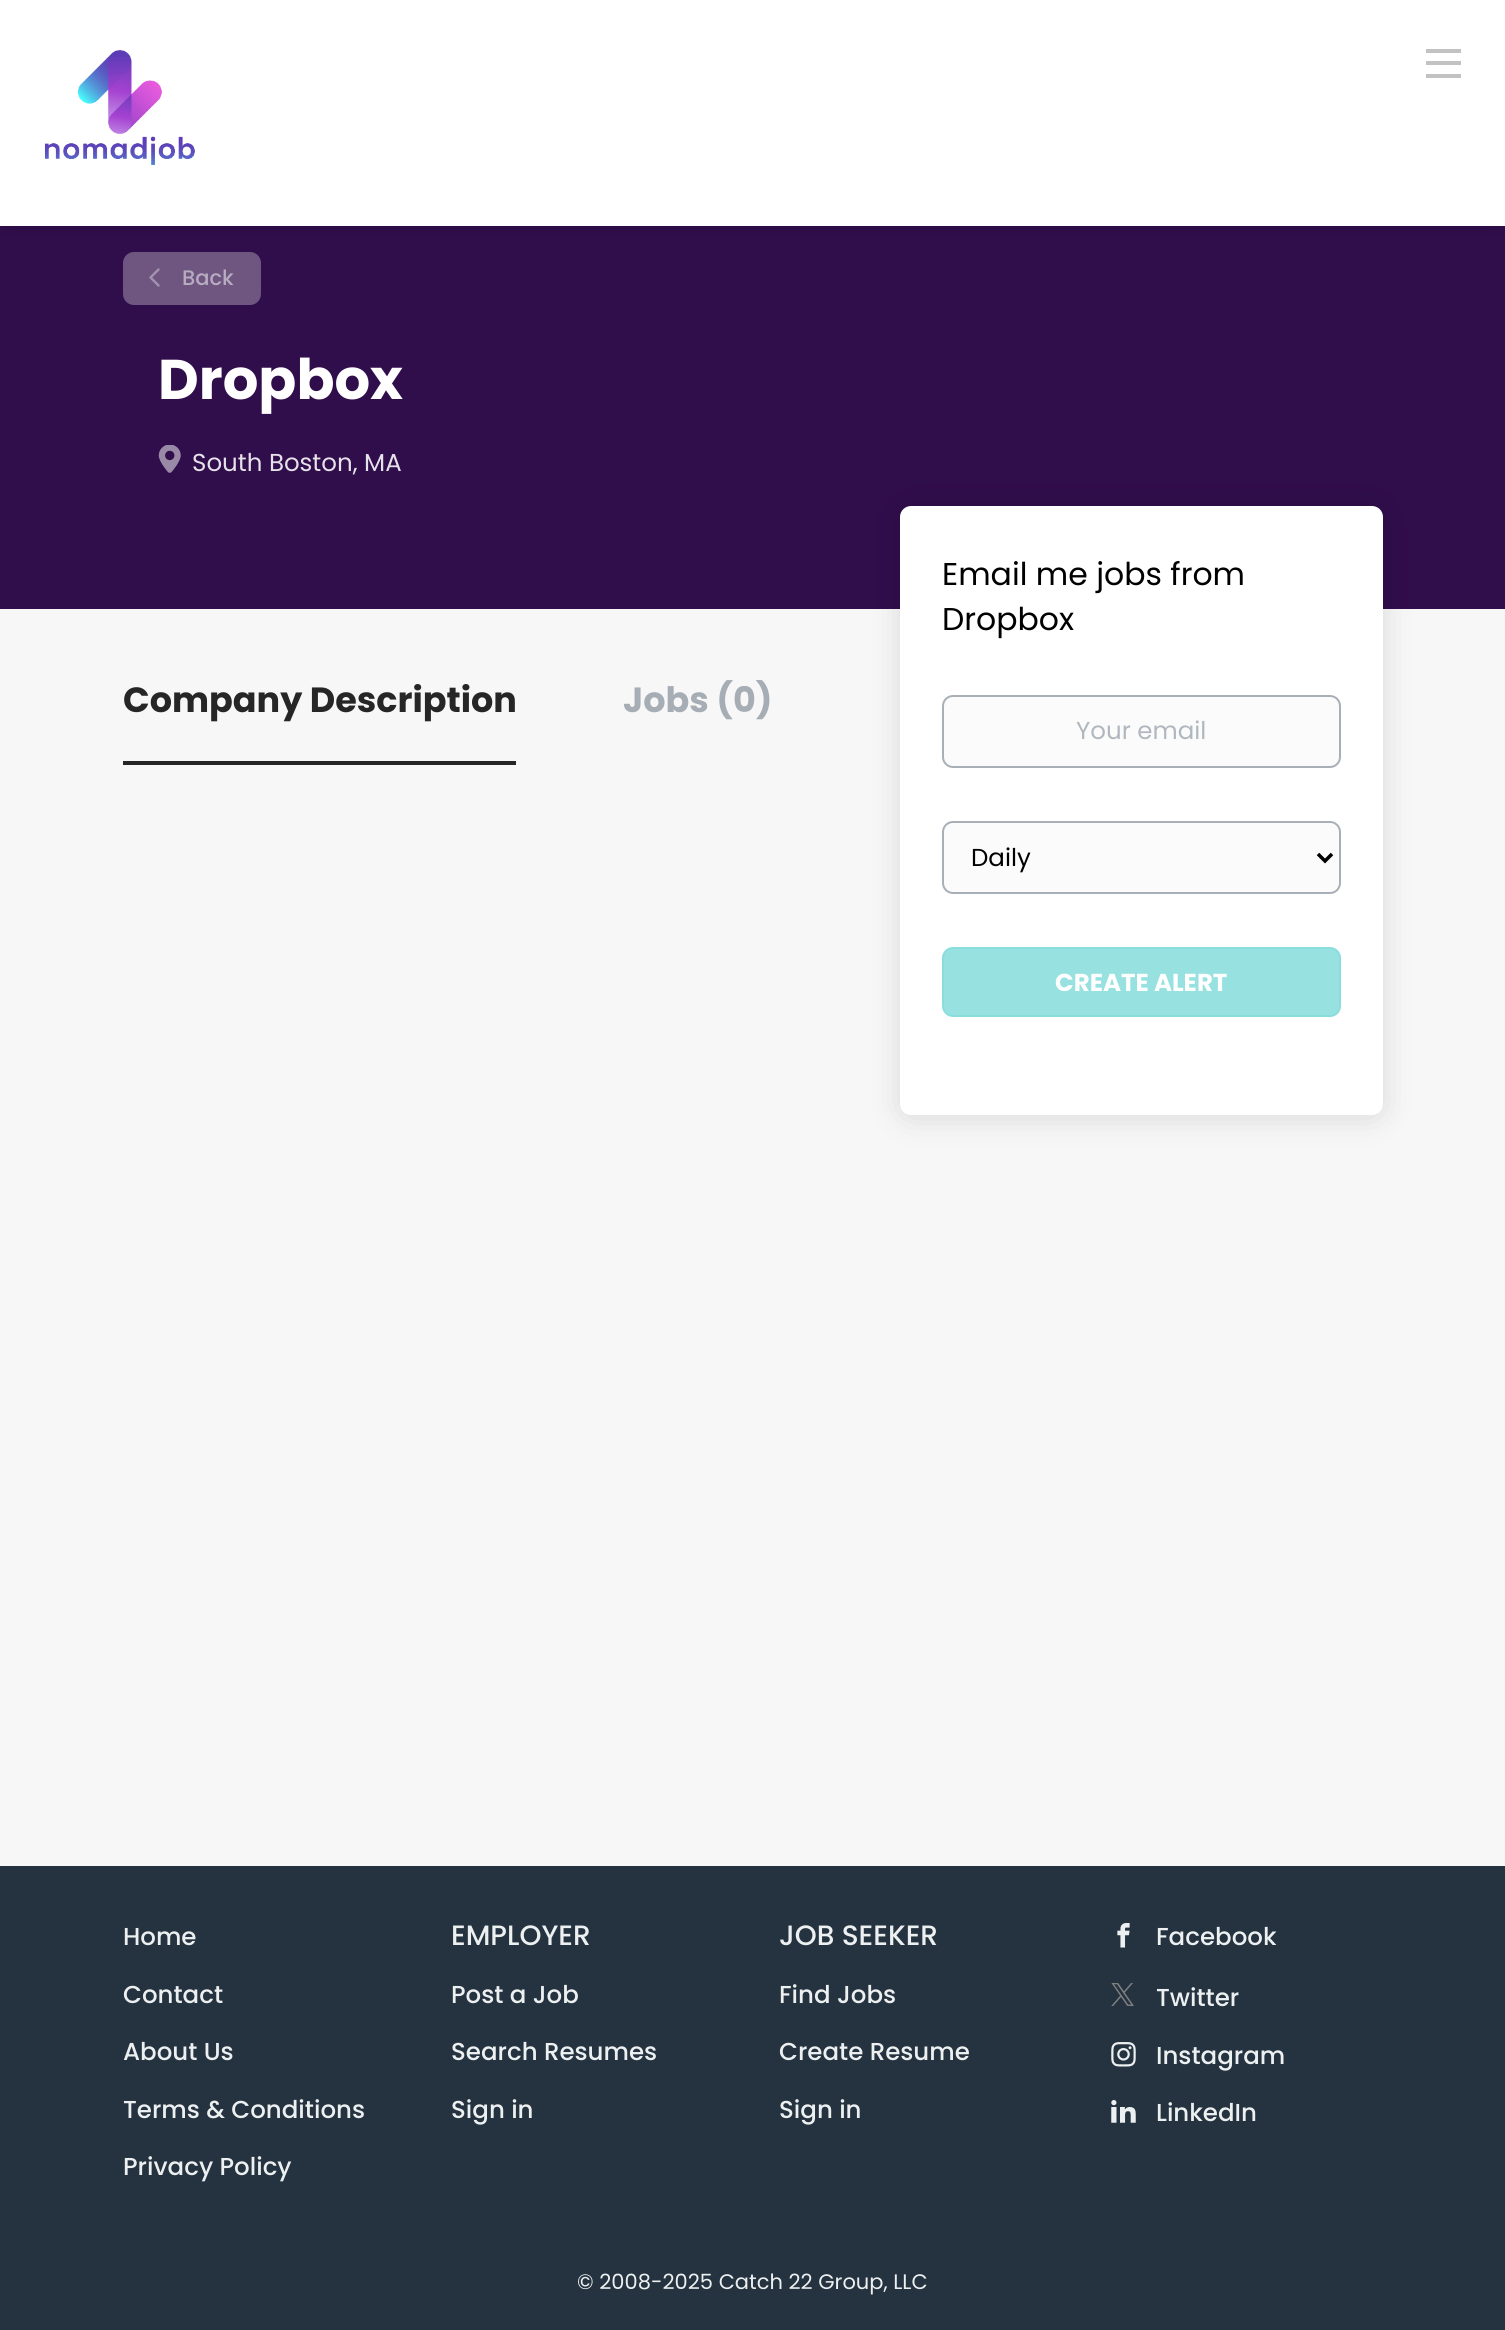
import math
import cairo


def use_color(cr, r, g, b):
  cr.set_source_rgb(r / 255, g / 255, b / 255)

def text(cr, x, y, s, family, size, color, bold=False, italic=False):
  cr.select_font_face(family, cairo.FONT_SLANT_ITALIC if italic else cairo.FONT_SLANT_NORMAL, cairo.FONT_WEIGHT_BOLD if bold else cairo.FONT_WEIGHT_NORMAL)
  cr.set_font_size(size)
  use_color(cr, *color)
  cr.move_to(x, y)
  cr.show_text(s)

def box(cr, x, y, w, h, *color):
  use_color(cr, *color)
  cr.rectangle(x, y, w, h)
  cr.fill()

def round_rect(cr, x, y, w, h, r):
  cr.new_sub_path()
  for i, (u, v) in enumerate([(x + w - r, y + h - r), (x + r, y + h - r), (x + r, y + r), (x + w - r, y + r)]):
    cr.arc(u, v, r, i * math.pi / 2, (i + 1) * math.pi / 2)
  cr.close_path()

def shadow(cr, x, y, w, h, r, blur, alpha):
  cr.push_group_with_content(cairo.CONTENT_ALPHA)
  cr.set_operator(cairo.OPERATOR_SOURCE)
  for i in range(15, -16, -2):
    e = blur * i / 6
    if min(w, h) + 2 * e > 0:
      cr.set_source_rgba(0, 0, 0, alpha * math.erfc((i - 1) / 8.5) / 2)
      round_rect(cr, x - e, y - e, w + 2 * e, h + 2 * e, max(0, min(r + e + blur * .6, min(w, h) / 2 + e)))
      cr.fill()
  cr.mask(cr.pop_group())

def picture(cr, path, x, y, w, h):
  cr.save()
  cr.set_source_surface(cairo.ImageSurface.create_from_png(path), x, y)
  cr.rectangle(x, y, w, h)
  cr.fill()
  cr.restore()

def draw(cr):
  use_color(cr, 247, 247, 247)
  cr.paint()
  box(cr, 0, 226, 1505, 383, 48, 13, 75)
  use_color(cr, 0, 0, 0)
  shadow(cr, 7, 11, 1491, 211, 0, 8, 0.3)
  box(cr, 0, 0, 1505, 226, 255, 255, 255)
  picture(cr, "img_01.png", 44, 50, 151, 115)
  box(cr, 1426, 61, 35, 4, 194, 194, 194)
  box(cr, 1426, 49, 35, 4, 194, 194, 194)
  box(cr, 1426, 74, 35, 4, 194, 194, 194)
  use_color(cr, 110, 86, 129)
  round_rect(cr, 123, 252, 138, 53, 11)
  cr.fill()
  cr.new_path()
  cr.move_to(158.5, 269.5)
  cr.line_to(150.5, 277.5)
  cr.line_to(158.5, 285.5)
  use_color(cr, 162, 147, 175)
  cr.set_line_width(2.4)
  cr.set_line_cap(cairo.LINE_CAP_ROUND)
  cr.set_line_join(cairo.LINE_JOIN_ROUND)
  cr.stroke()
  picture(cr, "img_02.png", 158, 445, 23, 28)
  box(cr, 123, 761, 393, 4, 38, 38, 38)
  use_color(cr, 0, 0, 0)
  shadow(cr, 900, 509, 483, 609, 11, 16, 0.12)
  use_color(cr, 255, 255, 255)
  round_rect(cr, 900, 506, 483, 609, 11)
  cr.fill()
  use_color(cr, 251, 251, 251)
  round_rect(cr, 943, 696, 397, 71, 10)
  cr.fill_preserve()
  use_color(cr, 168, 175, 183)
  cr.set_line_width(2)
  cr.set_line_cap(cairo.LINE_CAP_BUTT)
  cr.set_line_join(cairo.LINE_JOIN_MITER)
  cr.stroke()
  use_color(cr, 251, 251, 251)
  round_rect(cr, 943, 822, 397, 71, 10)
  cr.fill_preserve()
  use_color(cr, 168, 175, 183)
  cr.stroke()
  cr.new_path()
  cr.move_to(1318, 854)
  cr.line_to(1325, 861)
  cr.line_to(1332, 854)
  use_color(cr, 0, 0, 0)
  cr.set_line_width(3.5)
  cr.stroke()
  use_color(cr, 151, 225, 225)
  round_rect(cr, 943, 948, 397, 68, 10)
  cr.fill_preserve()
  use_color(cr, 138, 221, 221)
  cr.set_line_width(2)
  cr.stroke()
  box(cr, 0, 1866, 1505, 464, 37, 50, 63)
  picture(cr, "img_03.png", 1117, 1923, 13, 25)
  picture(cr, "img_04.png", 1111, 1983, 23, 23)
  picture(cr, "img_05.png", 1111, 2042, 25, 25)
  picture(cr, "img_06.png", 1111, 2100, 25, 23)
  text(cr, 182, 285, "Back", "Poppins Medium", 21, (183, 171, 192))
  text(cr, 158, 399, "Dropbox", "Poppins", 56, (255, 255, 255), bold=True)
  text(cr, 192, 471, "South Boston, MA", "Poppins", 24.5, (230, 226, 233))
  text(cr, 123, 712, "Company Description", "Poppins", 35, (38, 38, 38), bold=True)
  text(cr, 623, 712, "Jobs (0)", "Poppins", 35, (166, 173, 180), bold=True)
  text(cr, 942, 585, "Email me jobs from", "Poppins", 31.5, (0, 0, 0))
  text(cr, 942, 630, "Dropbox", "Poppins", 31.5, (0, 0, 0))
  text(cr, 1076, 739, "Your email", "Poppins", 24.5, (177, 183, 191))
  text(cr, 971, 866, "Daily", "Poppins", 24.5, (0, 0, 0))
  text(cr, 1055, 991, "CREATE ALERT", "Poppins", 24.5, (255, 255, 255), bold=True)
  text(cr, 123, 1945, "Home", "Poppins Medium", 24.5, (236, 240, 241))
  text(cr, 123, 2003, "Contact", "Poppins Medium", 24.5, (236, 240, 241))
  text(cr, 123, 2060, "About Us", "Poppins Medium", 24.5, (236, 240, 241))
  text(cr, 123, 2118, "Terms & Conditions", "Poppins Medium", 24.5, (236, 240, 241))
  text(cr, 123, 2175, "Privacy Policy", "Poppins Medium", 24.5, (236, 240, 241))
  text(cr, 451, 1945, "EMPLOYER", "Poppins Medium", 28, (236, 240, 241))
  text(cr, 451, 2003, "Post a Job", "Poppins Medium", 24.5, (236, 240, 241))
  text(cr, 451, 2060, "Search Resumes", "Poppins Medium", 24.5, (236, 240, 241))
  text(cr, 451, 2118, "Sign in", "Poppins Medium", 24.5, (236, 240, 241))
  text(cr, 779, 1945, "JOB SEEKER", "Poppins Medium", 28, (236, 240, 241))
  text(cr, 779, 2003, "Find Jobs", "Poppins Medium", 24.5, (236, 240, 241))
  text(cr, 779, 2060, "Create Resume", "Poppins Medium", 24.5, (236, 240, 241))
  text(cr, 779, 2118, "Sign in", "Poppins Medium", 24.5, (236, 240, 241))
  text(cr, 1156, 1945, "Facebook", "Poppins Medium", 24.5, (236, 240, 241))
  text(cr, 1156, 2006, "Twitter", "Poppins Medium", 24.5, (236, 240, 241))
  text(cr, 1156, 2064, "Instagram", "Poppins Medium", 24.5, (236, 240, 241))
  text(cr, 1156, 2121, "LinkedIn", "Poppins Medium", 24.5, (236, 240, 241))
  text(cr, 577, 2289, "© 2008-2025 Catch 22 Group, LLC", "Poppins", 21, (236, 240, 241))


surface = cairo.ImageSurface(cairo.FORMAT_RGB24, 1505, 2330)
cr = cairo.Context(surface)
options = cairo.FontOptions()
options.set_hint_metrics(cairo.HINT_METRICS_OFF)
options.set_hint_style(cairo.HINT_STYLE_NONE)
cr.set_font_options(options)
cr.set_miter_limit(4)
draw(cr)
surface.write_to_png("out.png")
